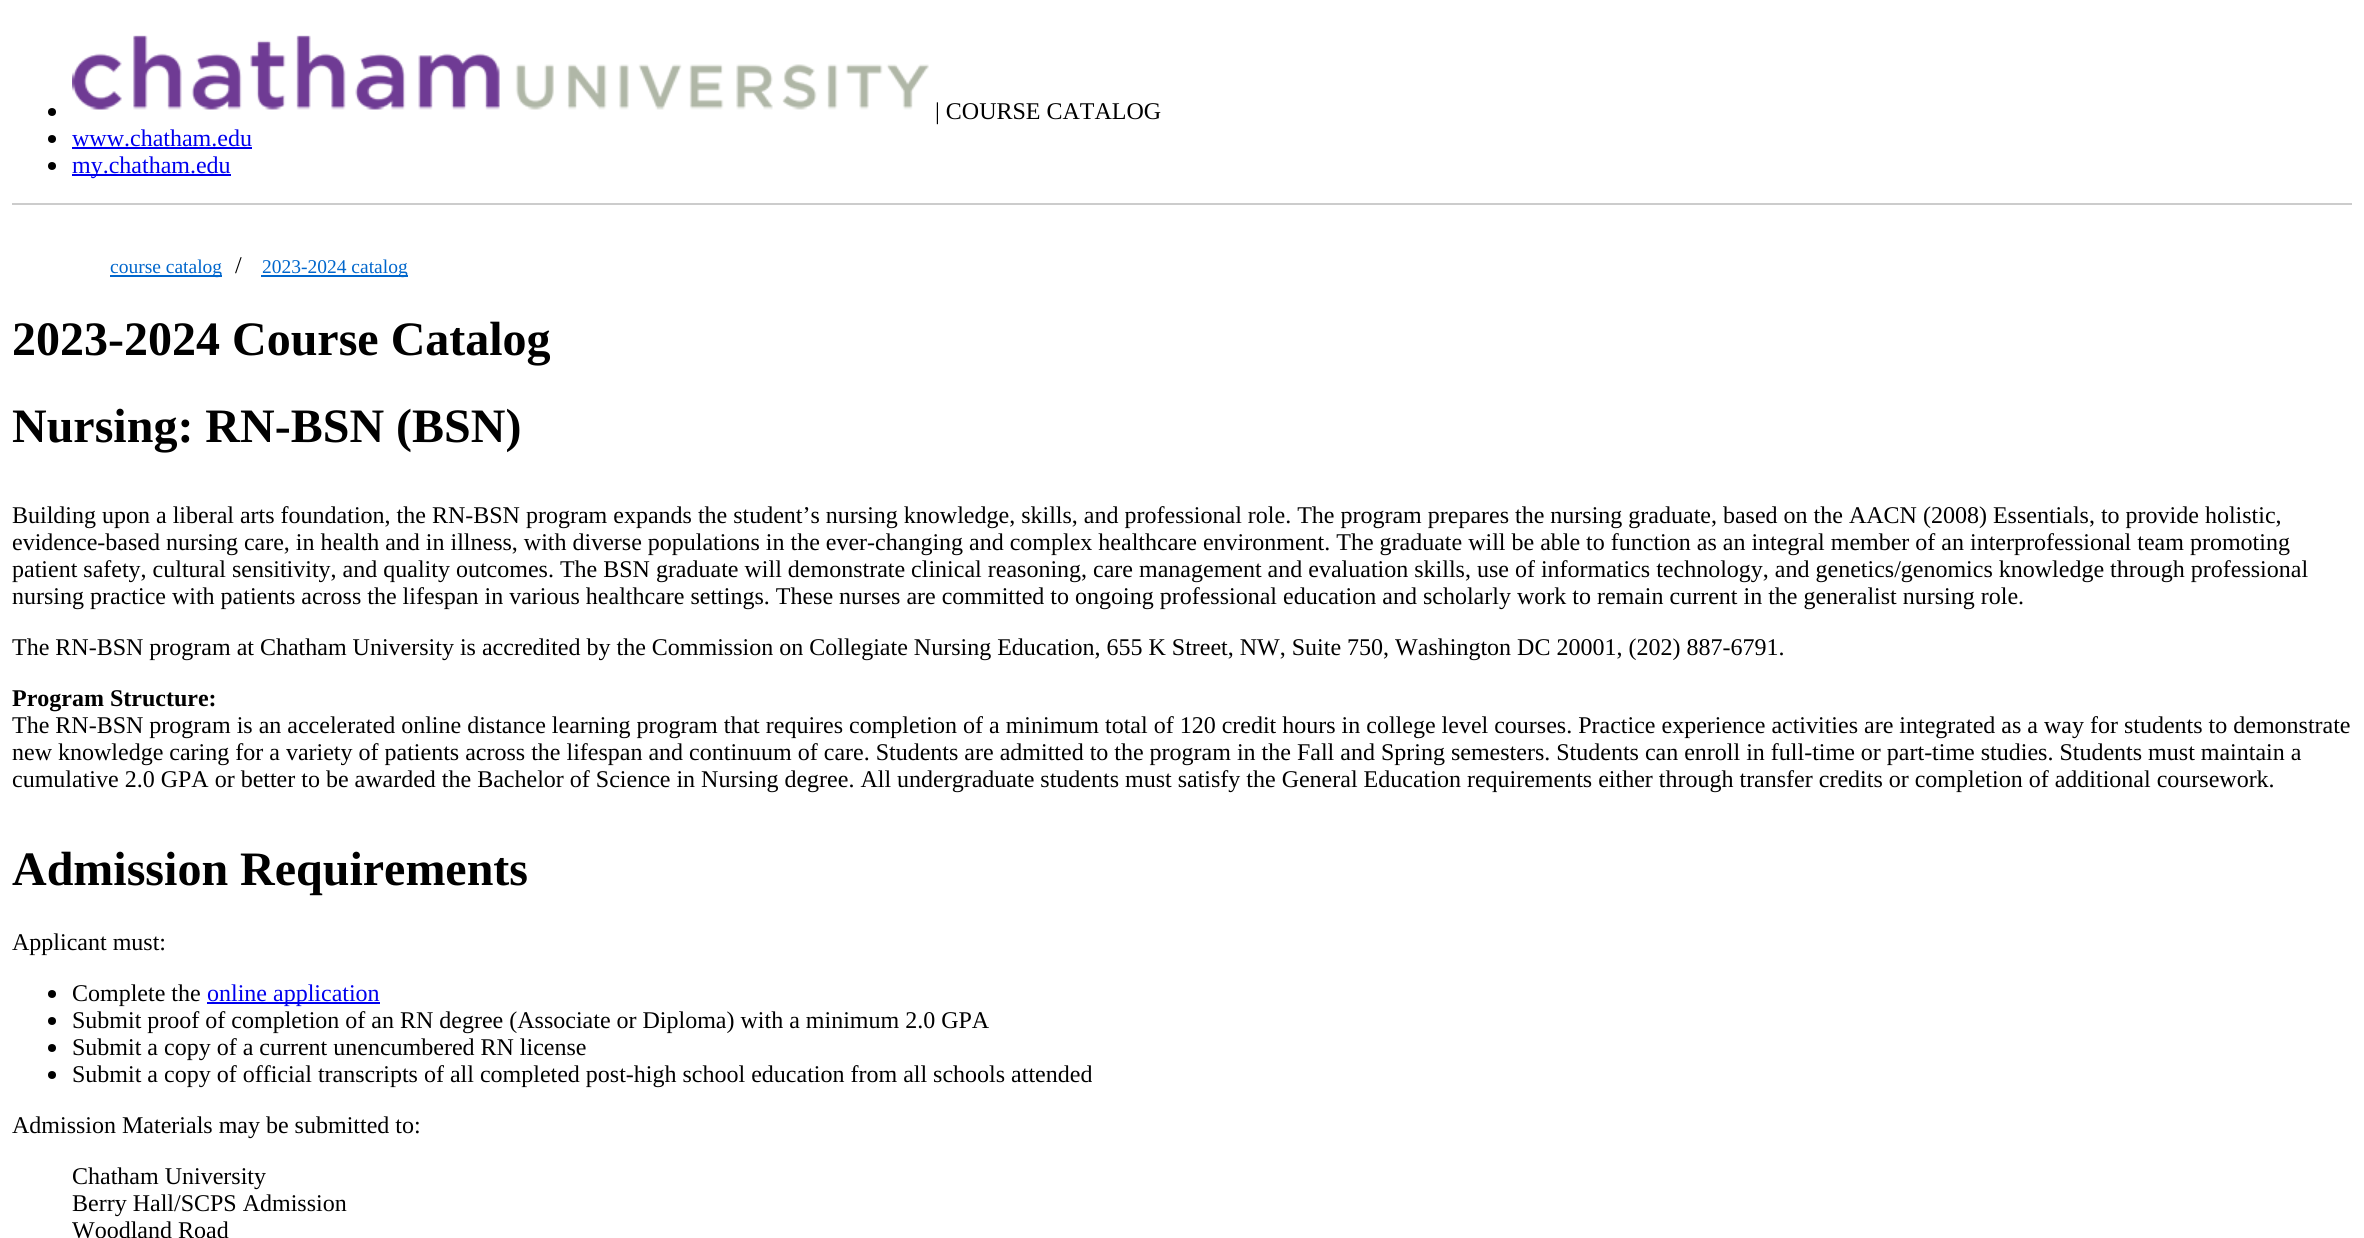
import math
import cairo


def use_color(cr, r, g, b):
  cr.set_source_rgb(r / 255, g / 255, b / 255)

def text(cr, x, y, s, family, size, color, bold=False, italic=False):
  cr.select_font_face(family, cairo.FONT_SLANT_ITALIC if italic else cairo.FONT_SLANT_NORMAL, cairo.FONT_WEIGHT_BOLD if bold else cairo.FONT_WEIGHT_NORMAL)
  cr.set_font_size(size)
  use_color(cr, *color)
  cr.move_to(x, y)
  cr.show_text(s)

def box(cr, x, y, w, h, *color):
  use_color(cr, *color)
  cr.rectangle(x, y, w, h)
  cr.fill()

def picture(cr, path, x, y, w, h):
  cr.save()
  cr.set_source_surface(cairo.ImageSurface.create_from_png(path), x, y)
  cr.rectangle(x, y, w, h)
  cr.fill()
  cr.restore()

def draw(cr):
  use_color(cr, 255, 255, 255)
  cr.paint()
  box(cr, 12, 203, 2340, 2, 204, 204, 204)
  picture(cr, "img_01.png", 72, 35, 857, 75)
  use_color(cr, 0, 0, 0)
  cr.arc(52, 112, 4, 0, 2 * math.pi)
  cr.fill()
  cr.arc(52, 139, 4, 0, 2 * math.pi)
  cr.fill()
  box(cr, 72, 147, 180, 2, 0, 0, 238)
  use_color(cr, 0, 0, 0)
  cr.arc(52, 166, 4, 0, 2 * math.pi)
  cr.fill()
  box(cr, 72, 174, 159, 2, 0, 0, 238)
  box(cr, 110, 275, 112, 2, 0, 102, 204)
  box(cr, 261, 275, 147, 2, 0, 102, 204)
  use_color(cr, 0, 0, 0)
  cr.arc(52, 994, 4, 0, 2 * math.pi)
  cr.fill()
  box(cr, 207, 1002, 173, 2, 0, 0, 238)
  use_color(cr, 0, 0, 0)
  cr.arc(52, 1021, 4, 0, 2 * math.pi)
  cr.fill()
  cr.arc(52, 1048, 4, 0, 2 * math.pi)
  cr.fill()
  cr.arc(52, 1075, 4, 0, 2 * math.pi)
  cr.fill()
  text(cr, 935, 119, "| COURSE CATALOG", "Liberation Serif", 24, (0, 0, 0))
  text(cr, 72, 146, "www.chatham.edu", "Liberation Serif", 24, (0, 0, 238))
  text(cr, 72, 173, "my.chatham.edu", "Liberation Serif", 24, (0, 0, 238))
  text(cr, 110, 273, "course catalog", "Liberation Serif", 19.5, (0, 102, 204))
  text(cr, 235, 273, "/", "Liberation Serif", 24, (0, 0, 0))
  text(cr, 262, 273, "2023-2024 catalog", "Liberation Serif", 19.5, (0, 102, 204))
  text(cr, 12, 355, "2023-2024 Course Catalog", "Liberation Serif", 48, (0, 0, 0), bold=True)
  text(cr, 12, 442, "Nursing: RN-BSN (BSN)", "Liberation Serif", 48, (0, 0, 0), bold=True)
  text(cr, 12, 523, "Building upon a liberal arts foundation, the RN-BSN program expands the student’s nursing knowledge, skills, and professional role. The program prepares the nursing graduate, based on the AACN (2008) Essentials, to provide holistic,", "Liberation Serif", 24, (0, 0, 0))
  text(cr, 12, 550, "evidence-based nursing care, in health and in illness, with diverse populations in the ever-changing and complex healthcare environment. The graduate will be able to function as an integral member of an interprofessional team promoting", "Liberation Serif", 24, (0, 0, 0))
  text(cr, 12, 577, "patient safety, cultural sensitivity, and quality outcomes. The BSN graduate will demonstrate clinical reasoning, care management and evaluation skills, use of informatics technology, and genetics/genomics knowledge through professional", "Liberation Serif", 24, (0, 0, 0))
  text(cr, 12, 604, "nursing practice with patients across the lifespan in various healthcare settings. These nurses are committed to ongoing professional education and scholarly work to remain current in the generalist nursing role.", "Liberation Serif", 24, (0, 0, 0))
  text(cr, 12, 655, "The RN-BSN program at Chatham University is accredited by the Commission on Collegiate Nursing Education, 655 K Street, NW, Suite 750, Washington DC 20001, (202) 887-6791.", "Liberation Serif", 24, (0, 0, 0))
  text(cr, 12, 706, "Program Structure:", "Liberation Serif", 24, (0, 0, 0), bold=True)
  text(cr, 12, 733, "The RN-BSN program is an accelerated online distance learning program that requires completion of a minimum total of 120 credit hours in college level courses. Practice experience activities are integrated as a way for students to demonstrate", "Liberation Serif", 24, (0, 0, 0))
  text(cr, 12, 760, "new knowledge caring for a variety of patients across the lifespan and continuum of care. Students are admitted to the program in the Fall and Spring semesters. Students can enroll in full-time or part-time studies. Students must maintain a", "Liberation Serif", 24, (0, 0, 0))
  text(cr, 12, 787, "cumulative 2.0 GPA or better to be awarded the Bachelor of Science in Nursing degree. All undergraduate students must satisfy the General Education requirements either through transfer credits or completion of additional coursework.", "Liberation Serif", 24, (0, 0, 0))
  text(cr, 12, 885, "Admission Requirements", "Liberation Serif", 48, (0, 0, 0), bold=True)
  text(cr, 12, 950, "Applicant must:", "Liberation Serif", 24, (0, 0, 0))
  text(cr, 72, 1001, "Complete the", "Liberation Serif", 24, (0, 0, 0))
  text(cr, 207, 1001, "online application", "Liberation Serif", 24, (0, 0, 238))
  text(cr, 72, 1028, "Submit proof of completion of an RN degree (Associate or Diploma) with a minimum 2.0 GPA", "Liberation Serif", 24, (0, 0, 0))
  text(cr, 72, 1055, "Submit a copy of a current unencumbered RN license", "Liberation Serif", 24, (0, 0, 0))
  text(cr, 72, 1082, "Submit a copy of official transcripts of all completed post-high school education from all schools attended", "Liberation Serif", 24, (0, 0, 0))
  text(cr, 12, 1133, "Admission Materials may be submitted to:", "Liberation Serif", 24, (0, 0, 0))
  text(cr, 72, 1184, "Chatham University", "Liberation Serif", 24, (0, 0, 0))
  text(cr, 72, 1211, "Berry Hall/SCPS Admission", "Liberation Serif", 24, (0, 0, 0))
  text(cr, 72, 1238, "Woodland Road", "Liberation Serif", 24, (0, 0, 0))


surface = cairo.ImageSurface(cairo.FORMAT_RGB24, 2364, 1238)
cr = cairo.Context(surface)
options = cairo.FontOptions()
options.set_hint_metrics(cairo.HINT_METRICS_OFF)
options.set_hint_style(cairo.HINT_STYLE_NONE)
cr.set_font_options(options)
cr.set_miter_limit(4)
draw(cr)
surface.write_to_png("out.png")
